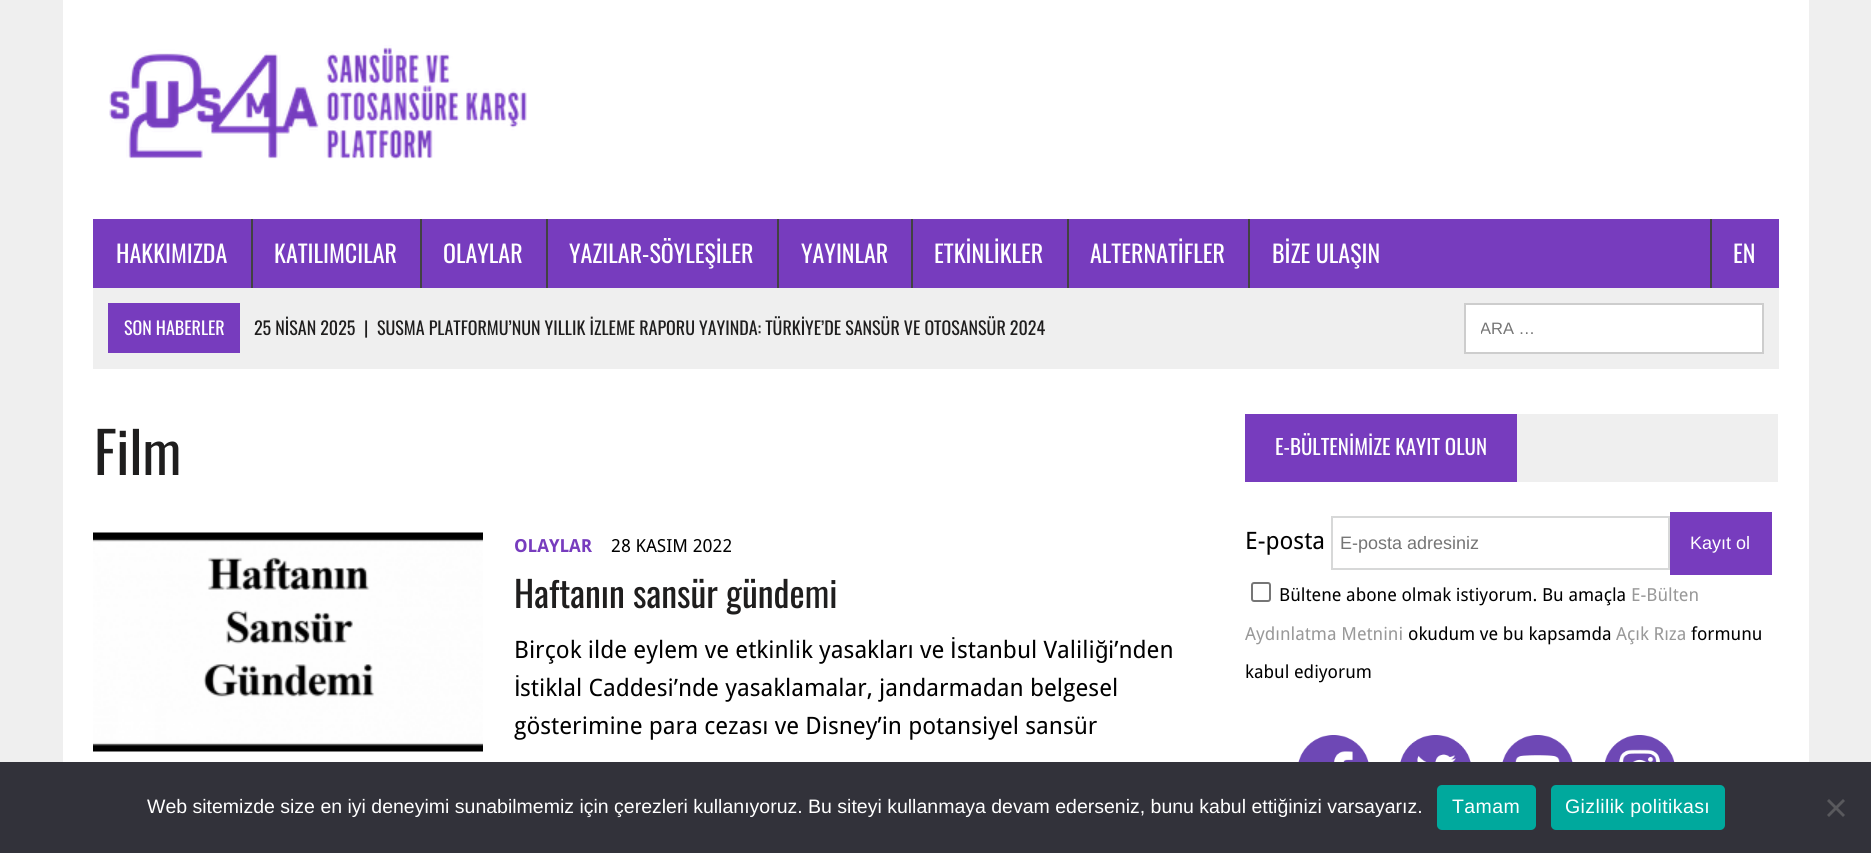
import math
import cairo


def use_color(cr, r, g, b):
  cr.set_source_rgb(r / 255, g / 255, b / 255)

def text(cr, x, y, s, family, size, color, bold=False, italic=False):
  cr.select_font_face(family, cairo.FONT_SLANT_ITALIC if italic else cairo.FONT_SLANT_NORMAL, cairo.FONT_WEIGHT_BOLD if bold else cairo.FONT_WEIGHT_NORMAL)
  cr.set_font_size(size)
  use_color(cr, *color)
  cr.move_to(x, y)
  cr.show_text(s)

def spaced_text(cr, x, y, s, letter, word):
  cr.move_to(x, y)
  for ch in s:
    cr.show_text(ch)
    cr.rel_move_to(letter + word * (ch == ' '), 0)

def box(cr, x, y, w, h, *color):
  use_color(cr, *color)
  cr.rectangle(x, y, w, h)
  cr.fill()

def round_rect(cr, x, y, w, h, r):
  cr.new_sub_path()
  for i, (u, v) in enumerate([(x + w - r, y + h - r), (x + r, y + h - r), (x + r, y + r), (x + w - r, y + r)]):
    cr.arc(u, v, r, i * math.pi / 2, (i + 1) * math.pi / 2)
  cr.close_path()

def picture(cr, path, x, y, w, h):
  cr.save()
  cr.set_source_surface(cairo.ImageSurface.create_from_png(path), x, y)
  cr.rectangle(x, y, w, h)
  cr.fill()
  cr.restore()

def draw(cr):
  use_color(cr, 239, 239, 239)
  cr.paint()
  box(cr, 63, 0, 1746, 762, 255, 255, 255)
  picture(cr, "img_01.png", 109, 45, 418, 115)
  box(cr, 93, 219, 1686, 69, 119, 60, 190)
  box(cr, 251, 219, 2, 69, 66, 66, 66)
  box(cr, 420, 219, 2, 69, 66, 66, 66)
  box(cr, 546, 219, 2, 69, 66, 66, 66)
  box(cr, 777, 219, 2, 69, 66, 66, 66)
  box(cr, 911, 219, 2, 69, 66, 66, 66)
  box(cr, 1067, 219, 2, 69, 66, 66, 66)
  box(cr, 1248, 219, 2, 69, 66, 66, 66)
  box(cr, 1710, 219, 2, 69, 66, 66, 66)
  box(cr, 93, 288, 1686, 81, 239, 239, 239)
  box(cr, 108, 303, 132, 50, 119, 60, 190)
  use_color(cr, 255, 255, 255)
  cr.rectangle(1465, 304, 298, 49)
  cr.fill_preserve()
  use_color(cr, 205, 205, 205)
  cr.stroke()
  picture(cr, "img_02.png", 93, 532, 390, 220)
  box(cr, 1517, 414, 261, 68, 239, 239, 239)
  box(cr, 1245, 414, 272, 68, 119, 60, 190)
  cr.rectangle(1332, 517, 337, 52)
  use_color(cr, 215, 216, 216)
  cr.stroke()
  box(cr, 1670, 512, 102, 63, 119, 60, 190)
  round_rect(cr, 1252, 583, 18, 18, 2)
  use_color(cr, 118, 118, 118)
  cr.stroke()
  picture(cr, "img_03.png", 1298, 735, 71, 27)
  picture(cr, "img_04.png", 1400, 735, 71, 27)
  picture(cr, "img_05.png", 1502, 735, 71, 27)
  picture(cr, "img_06.png", 1605, 735, 70, 27)
  box(cr, 0, 762, 1871, 91, 50, 50, 58)
  use_color(cr, 0, 169, 157)
  round_rect(cr, 1437, 785, 99, 45, 5)
  cr.fill()
  round_rect(cr, 1551, 785, 174, 45, 5)
  cr.fill()
  use_color(cr, 89, 89, 93)
  cr.new_path()
  cr.move_to(1843, 799)
  cr.line_to(1845, 801)
  cr.line_to(1829, 817)
  cr.line_to(1827, 815)
  cr.close_path()
  cr.fill()
  cr.new_path()
  cr.move_to(1827, 801)
  cr.line_to(1829, 799)
  cr.line_to(1845, 815)
  cr.line_to(1843, 817)
  cr.close_path()
  cr.fill()
  text(cr, 116, 263, "HAKKIMIZDA", "Oswald", 24, (255, 255, 255))
  text(cr, 274, 263, "KATILIMCILAR", "Oswald", 24, (255, 255, 255))
  text(cr, 443, 263, "OLAYLAR", "Oswald", 24, (255, 255, 255))
  text(cr, 569, 263, "YAZILAR-SÖYLEŞİLER", "Oswald", 24, (255, 255, 255))
  text(cr, 801, 263, "YAYINLAR", "Oswald", 24, (255, 255, 255))
  text(cr, 934, 263, "ETKİNLİKLER", "Oswald", 24, (255, 255, 255))
  text(cr, 1090, 263, "ALTERNATİFLER", "Oswald", 24, (255, 255, 255))
  text(cr, 1272, 263, "BİZE ULAŞIN", "Oswald", 24, (255, 255, 255))
  text(cr, 1733, 263, "EN", "Oswald", 24, (255, 255, 255))
  text(cr, 124, 335, "SON HABERLER", "Oswald", 18, (255, 255, 255))
  text(cr, 254, 335, "25 NİSAN 2025", "Oswald", 18, (31, 30, 30))
  text(cr, 364, 335, "|", "Oswald", 18, (31, 30, 30))
  text(cr, 377, 335, "SUSMA PLATFORMU’NUN YILLIK İZLEME RAPORU YAYINDA: TÜRKİYE’DE SANSÜR VE OTOSANSÜR 2024", "Oswald", 18, (31, 30, 30))
  cr.save()
  cr.rectangle(1481, 320, 249, 18)
  cr.clip()
  text(cr, 1480, 334, "ARA …", "Liberation Sans", 16.5, (117, 117, 117))
  cr.restore()
  text(cr, 94, 475, "Film", "Oswald", 57, (31, 30, 30))
  text(cr, 514, 552, "OLAYLAR", "Droid Sans", 18, (119, 60, 190), bold=True)
  text(cr, 611, 552, "28 KASIM 2022", "Droid Sans", 18, (0, 0, 0))
  text(cr, 514, 608, "Haftanın sansür gündemi", "Oswald", 36, (31, 30, 30))
  text(cr, 514, 658, "Birçok ilde eylem ve etkinlik yasakları ve", "Droid Sans", 24, (0, 0, 0))
  text(cr, 950, 658, "İ", "Liberation Sans", 24, (0, 0, 0))
  text(cr, 957, 658, "stanbul Valili", "Droid Sans", 24, (0, 0, 0))
  text(cr, 1095, 658, "ğ", "Liberation Sans", 24, (0, 0, 0))
  text(cr, 1108, 658, "i’nden", "Droid Sans", 24, (0, 0, 0))
  text(cr, 514, 696, "İ", "Liberation Sans", 24, (0, 0, 0))
  text(cr, 520, 696, "stiklal Caddesi’nde yasaklamalar, jandarmadan belgesel", "Droid Sans", 24, (0, 0, 0))
  text(cr, 514, 734, "gösterimine para cezası ve Disney’in potansiyel sansür", "Droid Sans", 24, (0, 0, 0))
  text(cr, 1275, 455, "E-BÜLTENİMİZE KAYIT OLUN", "Oswald", 21, (255, 255, 255))
  text(cr, 1245, 549, "E-posta", "Droid Sans", 24, (0, 0, 0))
  text(cr, 1340, 549, "E-posta adresiniz", "Liberation Sans", 18, (117, 117, 117))
  text(cr, 1690, 549, "Kayıt ol", "Liberation Sans", 18, (255, 255, 255))
  text(cr, 1279, 601, "Bültene abone olmak istiyorum. Bu amaçla", "Droid Sans", 18, (0, 0, 0))
  text(cr, 1631, 601, "E-Bülten", "Droid Sans", 18, (153, 153, 153))
  text(cr, 1245, 640, "Aydınlatma Metnini", "Droid Sans", 18, (153, 153, 153))
  text(cr, 1408, 640, "okudum ve bu kapsamda", "Droid Sans", 18, (0, 0, 0))
  text(cr, 1616, 640, "Açık Rıza", "Droid Sans", 18, (153, 153, 153))
  text(cr, 1691, 640, "formunu", "Droid Sans", 18, (0, 0, 0))
  text(cr, 1245, 678, "kabul ediyorum", "Droid Sans", 18, (0, 0, 0))
  text(cr, 147, 813, "Web sitemizde size en iyi deneyimi sunabilmemiz için çerezleri kullanıyoruz. Bu siteyi kullanmaya devam ederseniz, bunu kabul ettiğinizi varsayarız.", "Liberation Sans", 19.5, (255, 255, 255))
  spaced_text(cr, 1452, 813, "Tamam", 0.4, 0)
  spaced_text(cr, 1565, 813, "Gizlilik politikası", 0.4, 0)


surface = cairo.ImageSurface(cairo.FORMAT_RGB24, 1871, 853)
cr = cairo.Context(surface)
options = cairo.FontOptions()
options.set_hint_metrics(cairo.HINT_METRICS_OFF)
options.set_hint_style(cairo.HINT_STYLE_NONE)
cr.set_font_options(options)
cr.set_miter_limit(4)
draw(cr)
surface.write_to_png("out.png")
